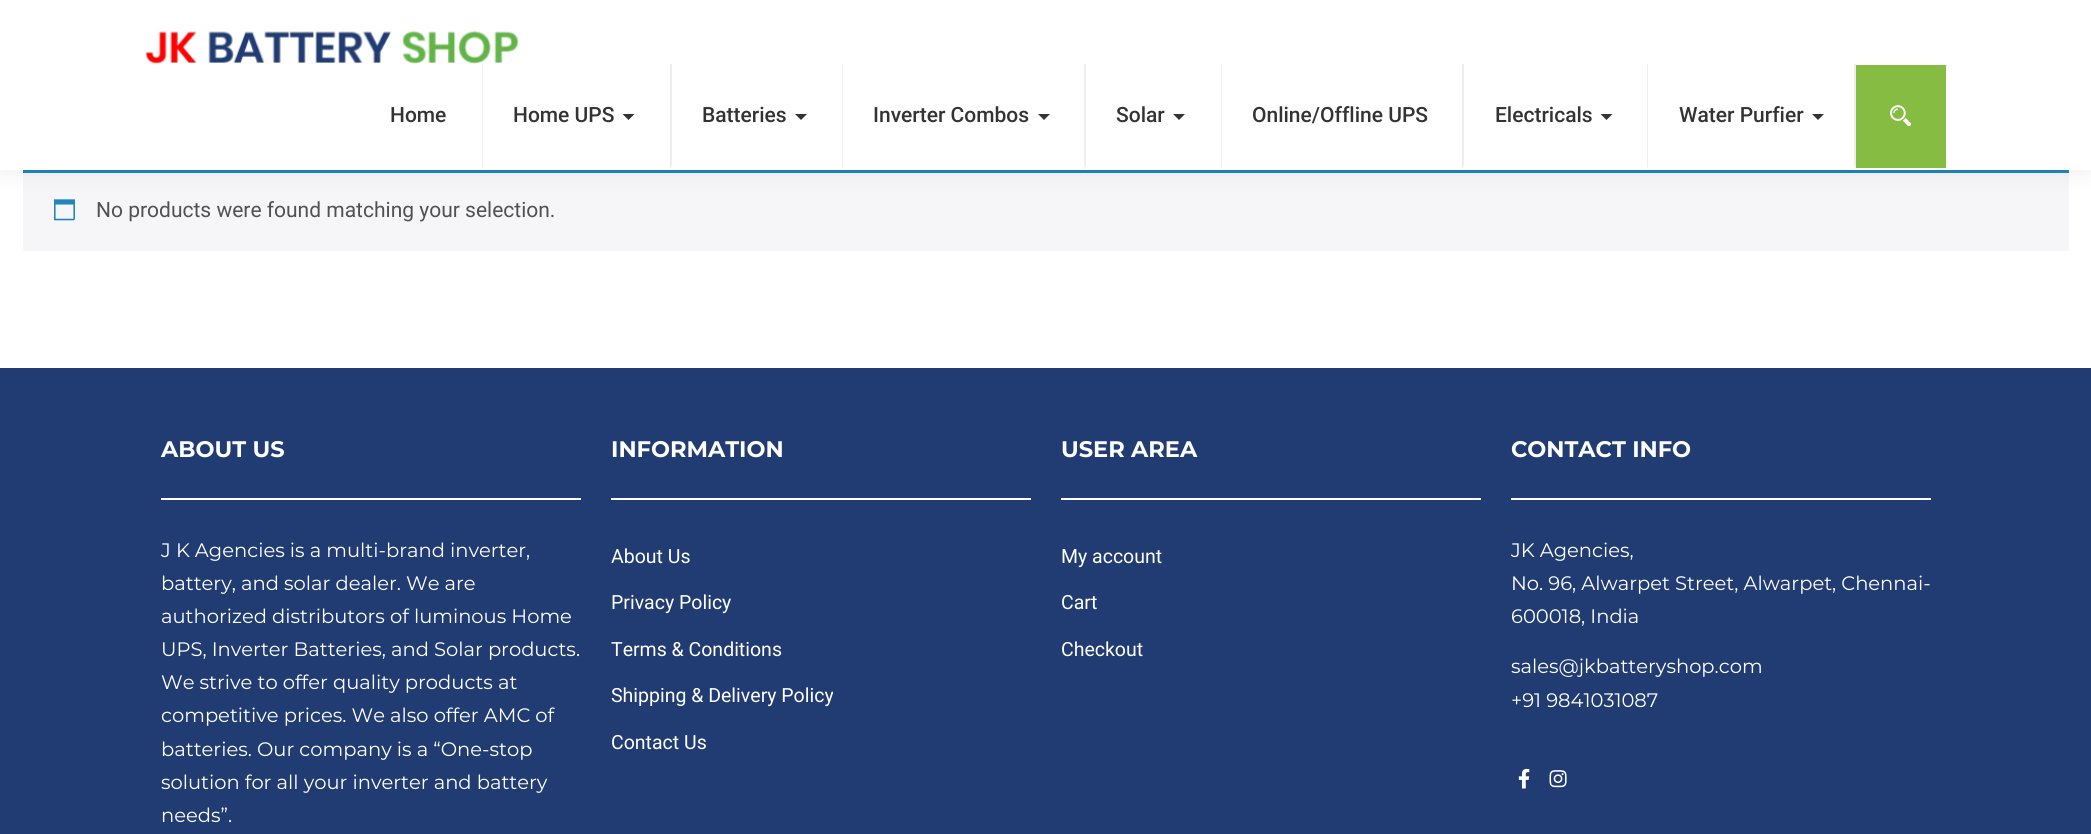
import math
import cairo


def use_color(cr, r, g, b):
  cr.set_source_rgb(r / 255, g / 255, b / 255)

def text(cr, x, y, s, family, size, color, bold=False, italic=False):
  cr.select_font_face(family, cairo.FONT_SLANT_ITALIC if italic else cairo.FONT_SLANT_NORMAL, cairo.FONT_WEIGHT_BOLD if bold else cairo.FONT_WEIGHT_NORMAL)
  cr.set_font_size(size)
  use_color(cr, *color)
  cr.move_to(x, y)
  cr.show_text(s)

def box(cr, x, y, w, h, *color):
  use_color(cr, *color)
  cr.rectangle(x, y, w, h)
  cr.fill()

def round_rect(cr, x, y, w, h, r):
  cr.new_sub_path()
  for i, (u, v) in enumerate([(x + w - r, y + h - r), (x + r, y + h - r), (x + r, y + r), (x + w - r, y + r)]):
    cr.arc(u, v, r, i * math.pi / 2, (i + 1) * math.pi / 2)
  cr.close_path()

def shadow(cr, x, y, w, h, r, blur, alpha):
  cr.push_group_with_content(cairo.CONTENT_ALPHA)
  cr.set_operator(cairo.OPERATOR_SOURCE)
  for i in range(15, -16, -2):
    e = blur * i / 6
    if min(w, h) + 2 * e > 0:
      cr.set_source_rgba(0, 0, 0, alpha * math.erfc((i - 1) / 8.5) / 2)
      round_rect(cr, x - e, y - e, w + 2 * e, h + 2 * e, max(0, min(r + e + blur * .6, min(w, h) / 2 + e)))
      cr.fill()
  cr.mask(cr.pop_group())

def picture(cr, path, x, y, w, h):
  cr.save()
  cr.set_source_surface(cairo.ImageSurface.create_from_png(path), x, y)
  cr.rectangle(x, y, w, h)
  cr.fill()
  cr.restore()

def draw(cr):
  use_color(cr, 255, 255, 255)
  cr.paint()
  box(cr, 23, 173, 2046, 78, 246, 245, 248)
  box(cr, 23, 170, 2046, 3, 30, 133, 190)
  picture(cr, "img_03.png", 54, 199, 21, 22)
  use_color(cr, 0, 0, 0)
  shadow(cr, 0, 5, 2091, 169, 0, 11, 0.06)
  box(cr, 0, 0, 2091, 170, 255, 255, 255)
  picture(cr, "img_01.png", 145, 30, 374, 34)
  use_color(cr, 238, 238, 238)
  cr.new_path()
  cr.move_to(482, 170)
  cr.line_to(482, 64)
  cr.line_to(483, 64)
  cr.line_to(483, 165)
  cr.close_path()
  cr.fill()
  use_color(cr, 51, 51, 51)
  cr.new_path()
  cr.move_to(622.5, 114)
  cr.line_to(634.5, 114)
  cr.line_to(628.5, 120)
  cr.close_path()
  cr.fill()
  use_color(cr, 238, 238, 238)
  cr.new_path()
  cr.move_to(670, 170)
  cr.line_to(670, 64)
  cr.line_to(672, 64)
  cr.line_to(672, 165)
  cr.close_path()
  cr.fill()
  use_color(cr, 51, 51, 51)
  cr.new_path()
  cr.move_to(795, 114)
  cr.line_to(807, 114)
  cr.line_to(801, 120)
  cr.close_path()
  cr.fill()
  use_color(cr, 238, 238, 238)
  cr.new_path()
  cr.move_to(842, 170)
  cr.line_to(842, 64)
  cr.line_to(843, 64)
  cr.line_to(843, 165)
  cr.close_path()
  cr.fill()
  use_color(cr, 51, 51, 51)
  cr.new_path()
  cr.move_to(1038, 114)
  cr.line_to(1050, 114)
  cr.line_to(1044, 120)
  cr.close_path()
  cr.fill()
  use_color(cr, 238, 238, 238)
  cr.new_path()
  cr.move_to(1084, 170)
  cr.line_to(1084, 64)
  cr.line_to(1086, 64)
  cr.line_to(1086, 165)
  cr.close_path()
  cr.fill()
  use_color(cr, 51, 51, 51)
  cr.new_path()
  cr.move_to(1173, 114)
  cr.line_to(1185, 114)
  cr.line_to(1179, 120)
  cr.close_path()
  cr.fill()
  use_color(cr, 238, 238, 238)
  cr.new_path()
  cr.move_to(1221, 170)
  cr.line_to(1221, 64)
  cr.line_to(1222, 64)
  cr.line_to(1222, 165)
  cr.close_path()
  cr.fill()
  cr.new_path()
  cr.move_to(1462, 170)
  cr.line_to(1462, 64)
  cr.line_to(1464, 64)
  cr.line_to(1464, 165)
  cr.close_path()
  cr.fill()
  use_color(cr, 51, 51, 51)
  cr.new_path()
  cr.move_to(1600.5, 114)
  cr.line_to(1612.5, 114)
  cr.line_to(1606.5, 120)
  cr.close_path()
  cr.fill()
  use_color(cr, 238, 238, 238)
  cr.new_path()
  cr.move_to(1856, 64)
  cr.line_to(1856, 170)
  cr.line_to(1854, 165)
  cr.line_to(1854, 64)
  cr.close_path()
  cr.fill()
  cr.new_path()
  cr.move_to(1647, 170)
  cr.line_to(1647, 64)
  cr.line_to(1648, 64)
  cr.line_to(1648, 165)
  cr.close_path()
  cr.fill()
  use_color(cr, 51, 51, 51)
  cr.new_path()
  cr.move_to(1812, 114)
  cr.line_to(1824, 114)
  cr.line_to(1818, 120)
  cr.close_path()
  cr.fill()
  box(cr, 1856, 65, 90, 103, 134, 188, 66)
  picture(cr, "img_02.png", 1890, 105, 21, 22)
  box(cr, 0, 368, 2091, 466, 33, 60, 114)
  box(cr, 161, 498, 420, 2, 255, 255, 255)
  box(cr, 611, 498, 420, 2, 255, 255, 255)
  box(cr, 1061, 498, 420, 2, 255, 255, 255)
  box(cr, 1511, 498, 420, 2, 255, 255, 255)
  picture(cr, "img_04.png", 1518, 768, 12, 21)
  picture(cr, "img_05.png", 1549, 770, 18, 18)
  text(cr, 390, 122, "Home", "Roboto Medium", 21, (51, 51, 51))
  text(cr, 513, 122, "Home UPS", "Roboto Medium", 21, (51, 51, 51))
  text(cr, 702, 122, "Batteries", "Roboto Medium", 21, (51, 51, 51))
  text(cr, 873, 122, "Inverter Combos", "Roboto Medium", 21, (51, 51, 51))
  text(cr, 1116, 122, "Solar", "Roboto Medium", 21, (51, 51, 51))
  text(cr, 1252, 122, "Online/Offline UPS", "Roboto Medium", 21, (51, 51, 51))
  text(cr, 1495, 122, "Electricals", "Roboto Medium", 21, (51, 51, 51))
  text(cr, 1679, 122, "Water Purfier", "Roboto Medium", 21, (51, 51, 51))
  text(cr, 96, 217, "No products were found matching your selection.", "Roboto", 21, (81, 81, 81))
  text(cr, 161, 457, "ABOUT US", "Montserrat", 22.5, (255, 255, 255), bold=True)
  text(cr, 161, 557, "J K Agencies is a multi-brand inverter,", "Montserrat", 19.5, (255, 255, 255))
  text(cr, 161, 590, "battery, and solar dealer. We are", "Montserrat", 19.5, (255, 255, 255))
  text(cr, 161, 623, "authorized distributors of luminous Home", "Montserrat", 19.5, (255, 255, 255))
  text(cr, 161, 656, "UPS, Inverter Batteries, and Solar products.", "Montserrat", 19.5, (255, 255, 255))
  text(cr, 161, 689, "We strive to offer quality products at", "Montserrat", 19.5, (255, 255, 255))
  text(cr, 161, 722, "competitive prices. We also offer AMC of", "Montserrat", 19.5, (255, 255, 255))
  text(cr, 161, 756, "batteries. Our company is a “One-stop", "Montserrat", 19.5, (255, 255, 255))
  text(cr, 161, 789, "solution for all your inverter and battery", "Montserrat", 19.5, (255, 255, 255))
  text(cr, 161, 822, "needs”.", "Montserrat", 19.5, (255, 255, 255))
  text(cr, 611, 457, "INFORMATION", "Montserrat", 22.5, (255, 255, 255), bold=True)
  text(cr, 611, 563, "About Us", "Roboto", 19.5, (255, 255, 255))
  text(cr, 611, 609, "Privacy Policy", "Roboto", 19.5, (255, 255, 255))
  text(cr, 611, 656, "Terms & Conditions", "Roboto", 19.5, (255, 255, 255))
  text(cr, 611, 702, "Shipping & Delivery Policy", "Roboto", 19.5, (255, 255, 255))
  text(cr, 611, 749, "Contact Us", "Roboto", 19.5, (255, 255, 255))
  text(cr, 1061, 457, "USER AREA", "Montserrat", 22.5, (255, 255, 255), bold=True)
  text(cr, 1061, 563, "My account", "Roboto", 19.5, (255, 255, 255))
  text(cr, 1061, 609, "Cart", "Roboto", 19.5, (255, 255, 255))
  text(cr, 1061, 656, "Checkout", "Roboto", 19.5, (255, 255, 255))
  text(cr, 1511, 457, "CONTACT INFO", "Montserrat", 22.5, (255, 255, 255), bold=True)
  text(cr, 1511, 557, "JK Agencies,", "Montserrat", 19.5, (255, 255, 255))
  text(cr, 1511, 590, "No. 96, Alwarpet Street, Alwarpet, Chennai-", "Montserrat", 19.5, (255, 255, 255))
  text(cr, 1511, 623, "600018, India", "Montserrat", 19.5, (255, 255, 255))
  text(cr, 1511, 673, "sales@jkbatteryshop.com", "Montserrat", 19.5, (255, 255, 255))
  text(cr, 1511, 707, "+91 9841031087", "Montserrat", 19.5, (255, 255, 255))


surface = cairo.ImageSurface(cairo.FORMAT_RGB24, 2091, 834)
cr = cairo.Context(surface)
options = cairo.FontOptions()
options.set_hint_metrics(cairo.HINT_METRICS_OFF)
options.set_hint_style(cairo.HINT_STYLE_NONE)
cr.set_font_options(options)
cr.set_miter_limit(4)
draw(cr)
surface.write_to_png("out.png")
